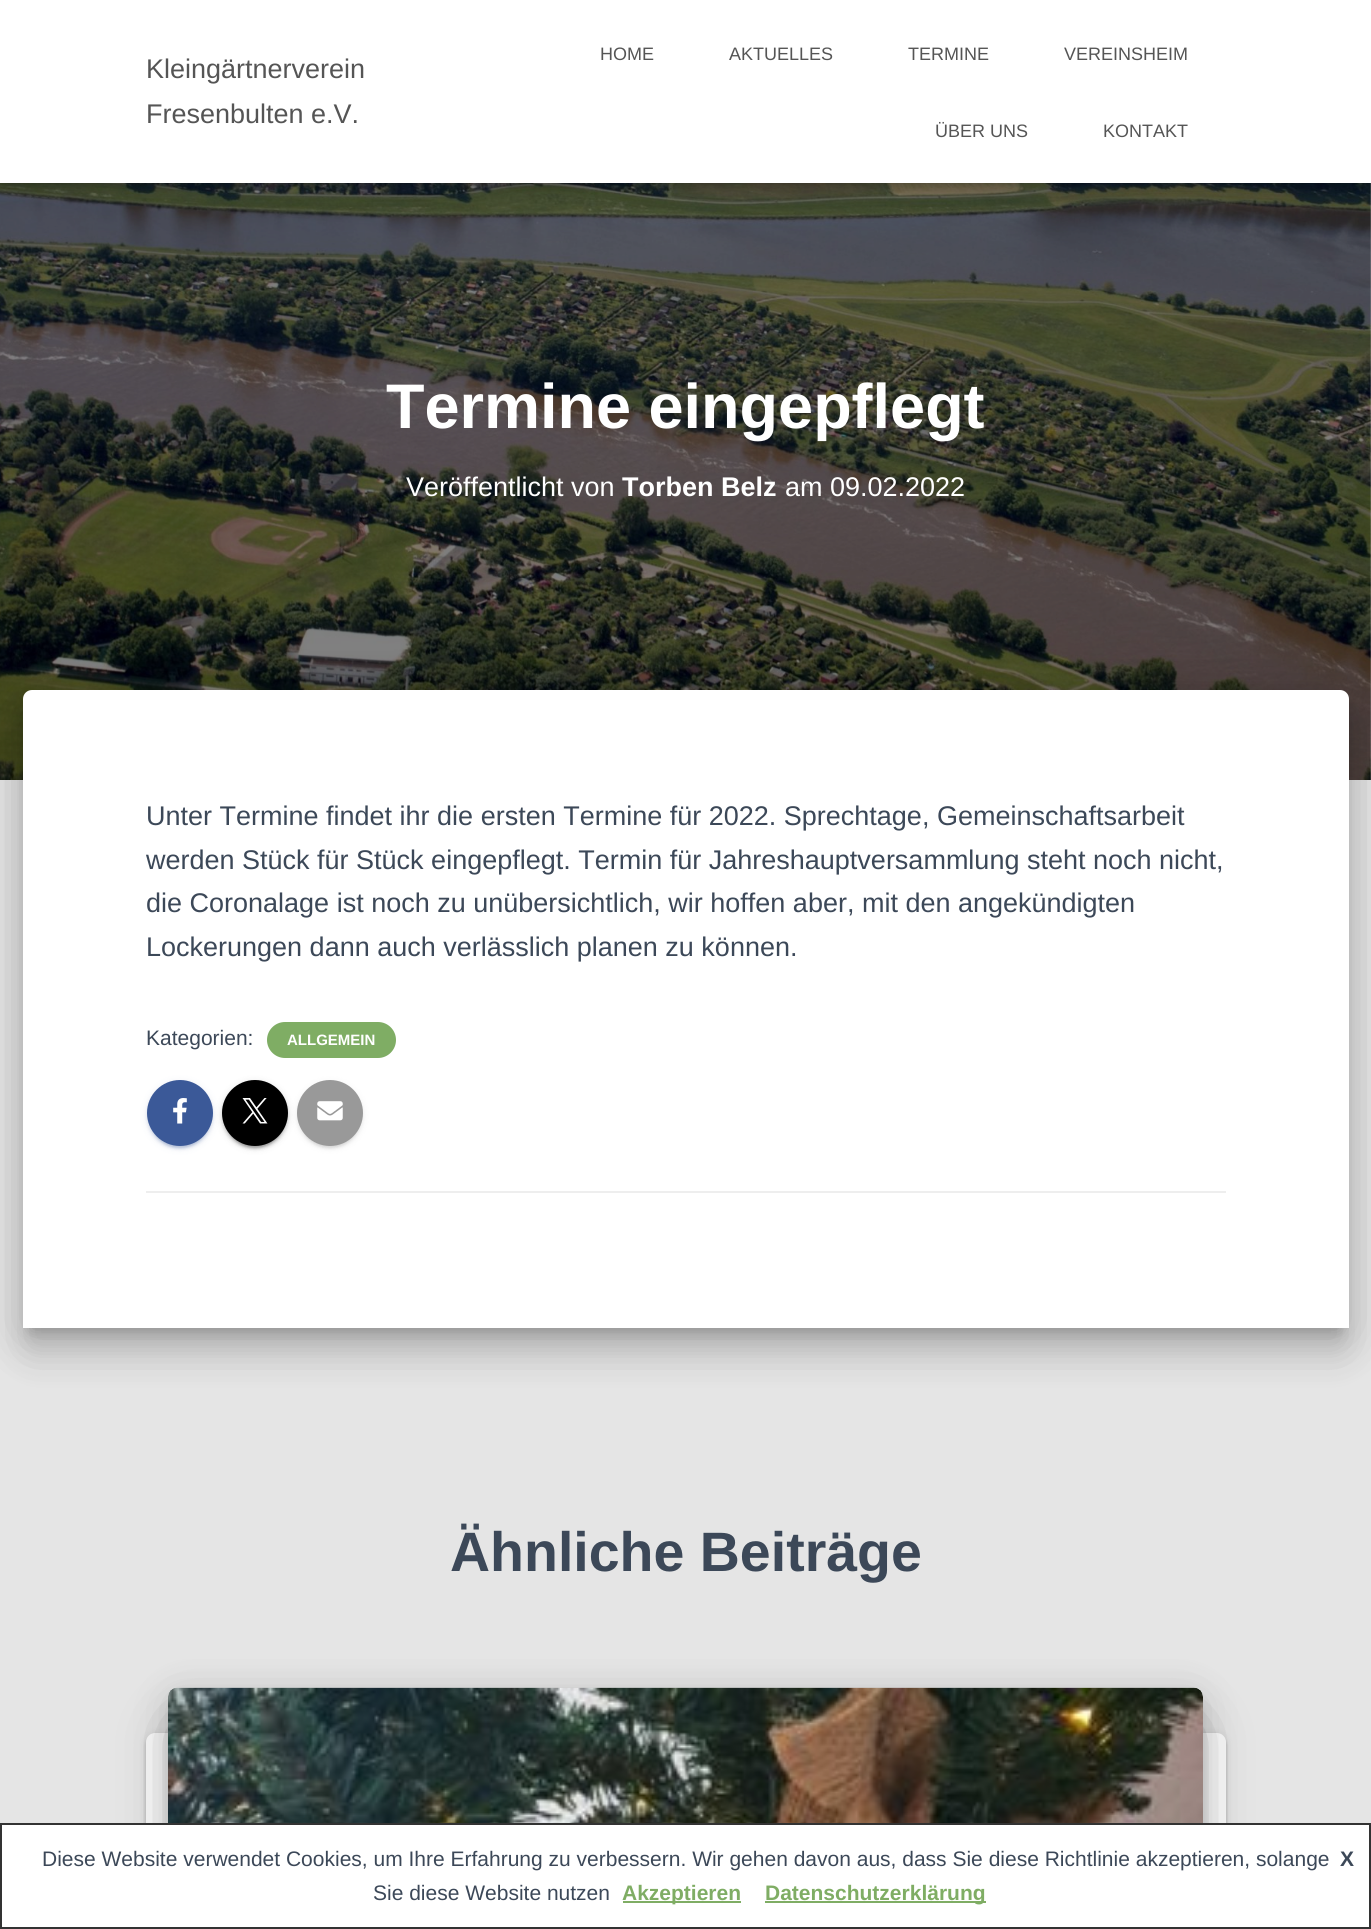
import math
import cairo


def use_color(cr, r, g, b):
  cr.set_source_rgb(r / 255, g / 255, b / 255)

def text(cr, x, y, s, family, size, color, bold=False, italic=False):
  cr.select_font_face(family, cairo.FONT_SLANT_ITALIC if italic else cairo.FONT_SLANT_NORMAL, cairo.FONT_WEIGHT_BOLD if bold else cairo.FONT_WEIGHT_NORMAL)
  cr.set_font_size(size)
  use_color(cr, *color)
  cr.move_to(x, y)
  cr.show_text(s)

def box(cr, x, y, w, h, *color):
  use_color(cr, *color)
  cr.rectangle(x, y, w, h)
  cr.fill()

def round_rect(cr, x, y, w, h, r):
  cr.new_sub_path()
  for i, (u, v) in enumerate([(x + w - r, y + h - r), (x + r, y + h - r), (x + r, y + r), (x + w - r, y + r)]):
    cr.arc(u, v, r, i * math.pi / 2, (i + 1) * math.pi / 2)
  cr.close_path()

def shadow(cr, x, y, w, h, r, blur, alpha):
  cr.push_group_with_content(cairo.CONTENT_ALPHA)
  cr.set_operator(cairo.OPERATOR_SOURCE)
  for i in range(15, -16, -2):
    e = blur * i / 6
    if min(w, h) + 2 * e > 0:
      cr.set_source_rgba(0, 0, 0, alpha * math.erfc((i - 1) / 8.5) / 2)
      round_rect(cr, x - e, y - e, w + 2 * e, h + 2 * e, max(0, min(r + e + blur * .6, min(w, h) / 2 + e)))
      cr.fill()
  cr.mask(cr.pop_group())

def picture(cr, path, x, y, w, h):
  cr.save()
  cr.set_source_surface(cairo.ImageSurface.create_from_png(path), x, y)
  cr.rectangle(x, y, w, h)
  cr.fill()
  cr.restore()

def draw(cr):
  use_color(cr, 229, 229, 229)
  cr.paint()
  picture(cr, "img_01.png", 0, 183, 1371, 597)
  use_color(cr, 0, 0, 0)
  shadow(cr, 3, 9, 1365, 177, 0, 4, 0.1)
  shadow(cr, 0, 2, 1371, 183, 0, 7.5, 0.12)
  shadow(cr, 9, 11, 1353, 165, 0, 7.5, 0.42)
  box(cr, 0, 0, 1371, 183, 255, 255, 255)
  use_color(cr, 0, 0, 0)
  shadow(cr, 30, 710, 1311, 622, 1.5, 7.5, 0.2)
  shadow(cr, 15, 692, 1341, 652, 17, 22.5, 0.12)
  shadow(cr, 20, 711, 1332, 644, 12, 18, 0.14)
  use_color(cr, 255, 255, 255)
  cr.new_path()
  cr.move_to(32, 690)
  cr.line_to(1340, 690)
  cr.curve_to(1345, 690, 1349, 694, 1349, 699)
  cr.line_to(1349, 1328)
  cr.line_to(23, 1328)
  cr.line_to(23, 699)
  cr.curve_to(23, 694, 27, 690, 32, 690)
  cr.close_path()
  cr.fill()
  use_color(cr, 127, 173, 100)
  round_rect(cr, 267, 1022, 129, 36, 18)
  cr.fill()
  use_color(cr, 59, 89, 152)
  shadow(cr, 147, 1082, 66, 66, 33, 4, 0.12)
  shadow(cr, 150, 1088, 60, 60, 30, 1, 0.2)
  shadow(cr, 147, 1083, 66, 66, 33, 1.5, 0.14)
  use_color(cr, 59, 89, 152)
  cr.arc(180, 1113, 33, 0, 2 * math.pi)
  cr.fill()
  picture(cr, "img_02.png", 173, 1098, 14, 26)
  use_color(cr, 0, 0, 0)
  shadow(cr, 222, 1082, 66, 66, 33, 4, 0.12)
  shadow(cr, 225, 1088, 60, 60, 30, 1, 0.2)
  shadow(cr, 222, 1083, 66, 66, 33, 1.5, 0.14)
  use_color(cr, 0, 0, 0)
  cr.arc(255, 1113, 33, 0, 2 * math.pi)
  cr.fill()
  picture(cr, "img_03.png", 242, 1098, 26, 26)
  use_color(cr, 153, 153, 153)
  shadow(cr, 297, 1082, 66, 66, 33, 4, 0.12)
  shadow(cr, 300, 1088, 60, 60, 30, 1, 0.2)
  shadow(cr, 297, 1083, 66, 66, 33, 1.5, 0.14)
  use_color(cr, 153, 153, 153)
  cr.arc(330, 1113, 33, 0, 2 * math.pi)
  cr.fill()
  picture(cr, "img_04.png", 317, 1101, 26, 20)
  box(cr, 146, 1191, 1080, 2, 238, 238, 238)
  use_color(cr, 0, 0, 0)
  shadow(cr, 146, 1734, 1080, 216, 9, 4, 0.12)
  shadow(cr, 146, 1736, 1080, 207, 9, 1.5, 0.14)
  use_color(cr, 255, 255, 255)
  round_rect(cr, 146, 1733, 1080, 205, 9)
  cr.fill()
  use_color(cr, 0, 0, 0)
  shadow(cr, 176, 1707, 1020, 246, 1.5, 7.5, 0.2)
  shadow(cr, 168, 1694, 1035, 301, 9, 19, 0.12)
  shadow(cr, 186, 1730, 999, 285, 0, 28.5, 0.56)
  picture(cr, "img_05.png", 168, 1687, 1035, 136)
  use_color(cr, 255, 255, 255)
  cr.rectangle(1, 1824, 1369, 104)
  cr.fill_preserve()
  use_color(cr, 51, 51, 51)
  cr.stroke()
  box(cr, 623, 1901, 118, 2, 127, 173, 100)
  box(cr, 765, 1901, 221, 2, 127, 173, 100)
  text(cr, 146, 78, "Kleingärtnerverein", "Liberation Sans", 27, (85, 85, 85))
  text(cr, 146, 123, "Fresenbulten e.V.", "Liberation Sans", 27, (85, 85, 85))
  text(cr, 600, 60, "HOME", "Liberation Sans", 18, (85, 85, 85))
  text(cr, 729, 60, "AKTUELLES", "Liberation Sans", 18, (85, 85, 85))
  text(cr, 908, 60, "TERMINE", "Liberation Sans", 18, (85, 85, 85))
  text(cr, 1064, 60, "VEREINSHEIM", "Liberation Sans", 18, (85, 85, 85))
  text(cr, 935, 137, "ÜBER UNS", "Liberation Sans", 18, (85, 85, 85))
  text(cr, 1103, 137, "KONTAKT", "Liberation Sans", 18, (85, 85, 85))
  text(cr, 386, 428, "Termine eingepflegt", "Liberation Sans", 63, (255, 255, 255), bold=True)
  text(cr, 406, 496, "Veröffentlicht von", "Liberation Sans", 27, (255, 255, 255))
  text(cr, 622, 496, "Torben Belz", "Liberation Sans", 27, (255, 255, 255), bold=True)
  text(cr, 785, 496, "am 09.02.2022", "Liberation Sans", 27, (255, 255, 255))
  text(cr, 146, 825, "Unter Termine findet ihr die ersten Termine für 2022. Sprechtage, Gemeinschaftsarbeit", "Liberation Sans", 27, (60, 72, 88))
  text(cr, 146, 869, "werden Stück für Stück eingepflegt. Termin für Jahreshauptversammlung steht noch nicht,", "Liberation Sans", 27, (60, 72, 88))
  text(cr, 146, 912, "die Coronalage ist noch zu unübersichtlich, wir hoffen aber, mit den angekündigten", "Liberation Sans", 27, (60, 72, 88))
  text(cr, 146, 956, "Lockerungen dann auch verlässlich planen zu können.", "Liberation Sans", 27, (60, 72, 88))
  text(cr, 146, 1045, "Kategorien:", "Liberation Sans", 21, (60, 72, 88))
  text(cr, 287, 1045, "ALLGEMEIN", "Liberation Sans", 15, (255, 255, 255), bold=True)
  text(cr, 450, 1571, "Ähnliche Beiträge", "Liberation Sans", 55.5, (60, 72, 88), bold=True)
  text(cr, 42, 1866, "Diese Website verwendet Cookies, um Ihre Erfahrung zu verbessern. Wir gehen davon aus, dass Sie diese Richtlinie akzeptieren, solange", "Liberation Sans", 21, (60, 72, 88))
  text(cr, 1340, 1866, "X", "Liberation Sans", 21, (60, 72, 88), bold=True)
  text(cr, 373, 1900, "Sie diese Website nutzen", "Liberation Sans", 21, (60, 72, 88))
  text(cr, 622, 1900, "Akzeptieren", "Liberation Sans", 21, (127, 173, 100), bold=True)
  text(cr, 765, 1900, "Datenschutzerklärung", "Liberation Sans", 21, (127, 173, 100), bold=True)


surface = cairo.ImageSurface(cairo.FORMAT_RGB24, 1371, 1929)
cr = cairo.Context(surface)
options = cairo.FontOptions()
options.set_hint_metrics(cairo.HINT_METRICS_OFF)
options.set_hint_style(cairo.HINT_STYLE_NONE)
cr.set_font_options(options)
cr.set_miter_limit(4)
draw(cr)
surface.write_to_png("out.png")
